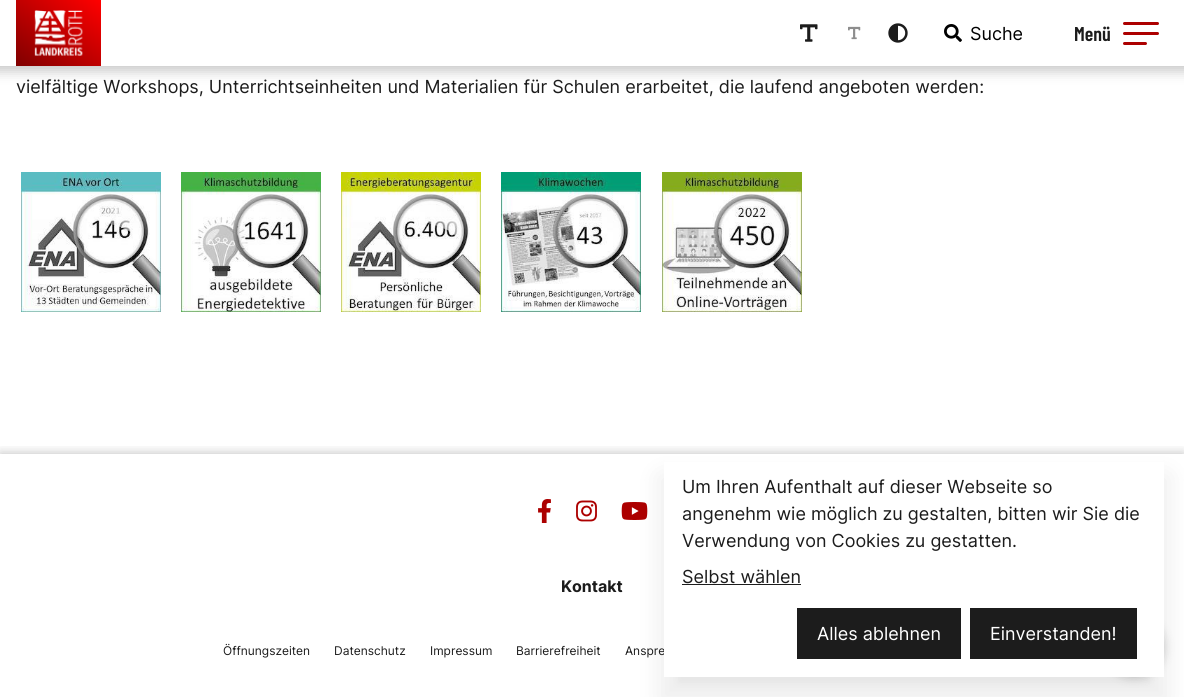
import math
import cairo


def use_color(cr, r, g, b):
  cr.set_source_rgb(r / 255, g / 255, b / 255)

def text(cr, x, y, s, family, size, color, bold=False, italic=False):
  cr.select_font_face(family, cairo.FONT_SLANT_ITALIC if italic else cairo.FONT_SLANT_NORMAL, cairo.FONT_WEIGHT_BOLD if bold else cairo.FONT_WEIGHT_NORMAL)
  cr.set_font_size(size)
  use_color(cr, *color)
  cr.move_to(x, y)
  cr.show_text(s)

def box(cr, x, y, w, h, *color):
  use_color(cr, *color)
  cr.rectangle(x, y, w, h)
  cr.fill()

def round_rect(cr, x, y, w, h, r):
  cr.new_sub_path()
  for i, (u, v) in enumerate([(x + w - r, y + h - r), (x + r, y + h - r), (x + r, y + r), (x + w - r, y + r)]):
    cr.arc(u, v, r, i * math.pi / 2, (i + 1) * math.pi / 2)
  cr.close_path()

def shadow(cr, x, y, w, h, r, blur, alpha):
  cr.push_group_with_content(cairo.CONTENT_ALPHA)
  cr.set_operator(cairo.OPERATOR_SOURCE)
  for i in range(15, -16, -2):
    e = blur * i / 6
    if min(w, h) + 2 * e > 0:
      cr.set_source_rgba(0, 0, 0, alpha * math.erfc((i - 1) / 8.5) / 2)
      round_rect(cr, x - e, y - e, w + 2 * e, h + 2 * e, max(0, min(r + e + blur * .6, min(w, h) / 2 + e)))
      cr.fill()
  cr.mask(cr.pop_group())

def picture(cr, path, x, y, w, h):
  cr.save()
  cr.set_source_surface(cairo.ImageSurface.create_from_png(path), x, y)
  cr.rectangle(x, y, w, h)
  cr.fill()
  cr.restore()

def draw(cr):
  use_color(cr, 255, 255, 255)
  cr.paint()
  use_color(cr, 0, 0, 0)
  shadow(cr, -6, -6, 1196, 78, 0, 6, 0.2)
  box(cr, 0, 0, 1184, 66, 255, 255, 255)
  gradient = cairo.LinearGradient(27, 74, 90, -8)
  gradient.add_color_stop_rgba(0, 0.502, 0, 0, 1)
  gradient.add_color_stop_rgba(1, 1, 0, 0, 1)
  cr.set_source(gradient)
  cr.rectangle(16, 0, 85, 66)
  cr.fill()
  picture(cr, "img_01.png", 34, 10, 49, 46)
  picture(cr, "img_02.png", 800, 24, 18, 18)
  picture(cr, "img_03.png", 848, 26, 13, 14)
  picture(cr, "img_04.png", 888, 23, 20, 20)
  picture(cr, "img_05.png", 944, 24, 18, 18)
  use_color(cr, 172, 0, 0)
  round_rect(cr, 1123, 22, 36, 3, 1.5)
  cr.fill()
  round_rect(cr, 1123, 32, 36, 3, 1.5)
  cr.fill()
  round_rect(cr, 1123, 42, 24, 3, 1.5)
  cr.fill()
  picture(cr, "img_06.png", 21, 172, 140, 140)
  picture(cr, "img_07.png", 181, 172, 140, 140)
  picture(cr, "img_08.png", 341, 172, 140, 140)
  picture(cr, "img_09.png", 501, 172, 140, 140)
  picture(cr, "img_10.png", 662, 172, 140, 140)
  cr.save()
  cr.rectangle(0, 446, 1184, 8)
  cr.clip()
  use_color(cr, 0, 0, 0)
  shadow(cr, 0, 452, 1184, 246, 0, 5, 0.2)
  cr.restore()
  picture(cr, "img_11.png", 538, 499, 13, 24)
  picture(cr, "img_12.png", 576, 500, 21, 22)
  picture(cr, "img_13.png", 621, 502, 27, 18)
  use_color(cr, 0, 0, 0)
  shadow(cr, 1104, 617, 60, 60, 30, 5, 0.2)
  shadow(cr, 679, 495, 470, 187, 0, 5, 0.04)
  shadow(cr, 659, 475, 510, 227, 0, 12.5, 0.07)
  cr.save()
  cr.rectangle(970, 23, 52, 21)
  cr.clip()
  text(cr, 970, 40, "Suche", "Inter", 18, (0, 0, 0))
  cr.restore()
  text(cr, 1074, 41, "Menü", "Barlow Condensed SemiBold", 20, (28, 28, 28))
  text(cr, 16, 93, "vielfältige Workshops, Unterrichtseinheiten und Materialien für Schulen erarbeitet, die laufend angeboten werden:", "Inter", 18, (28, 28, 28))
  text(cr, 561, 592, "Kontakt", "Inter", 16, (28, 28, 28), bold=True)
  text(cr, 223, 655, "Öffnungszeiten", "Inter", 12, (28, 28, 28))
  text(cr, 334, 655, "Datenschutz", "Inter", 12, (28, 28, 28))
  text(cr, 430, 655, "Impressum", "Inter", 12, (28, 28, 28))
  text(cr, 516, 655, "Barrierefreiheit", "Inter", 12, (28, 28, 28))
  text(cr, 625, 655, "Anspre", "Inter", 12, (28, 28, 28))
  box(cr, 664, 462, 500, 215, 255, 255, 255)
  text(cr, 682, 493, "Um Ihren Aufenthalt auf dieser Webseite so", "Inter", 18, (28, 28, 28))
  text(cr, 682, 520, "angenehm wie möglich zu gestalten, bitten wir Sie die", "Inter", 18, (28, 28, 28))
  text(cr, 682, 547, "Verwendung von Cookies zu gestatten.", "Inter", 18, (28, 28, 28))
  text(cr, 682, 583, "Selbst wählen", "Inter", 18, (28, 28, 28))
  box(cr, 682, 584, 119, 1, 28, 28, 28)
  box(cr, 797, 608, 164, 51, 28, 28, 28)
  text(cr, 817, 640, "Alles ablehnen", "Inter", 18, (255, 255, 255))
  box(cr, 970, 608, 167, 51, 28, 28, 28)
  text(cr, 990, 640, "Einverstanden!", "Inter", 18, (255, 255, 255))


surface = cairo.ImageSurface(cairo.FORMAT_RGB24, 1184, 697)
cr = cairo.Context(surface)
options = cairo.FontOptions()
options.set_hint_metrics(cairo.HINT_METRICS_OFF)
options.set_hint_style(cairo.HINT_STYLE_NONE)
cr.set_font_options(options)
cr.set_miter_limit(4)
draw(cr)
surface.write_to_png("out.png")
